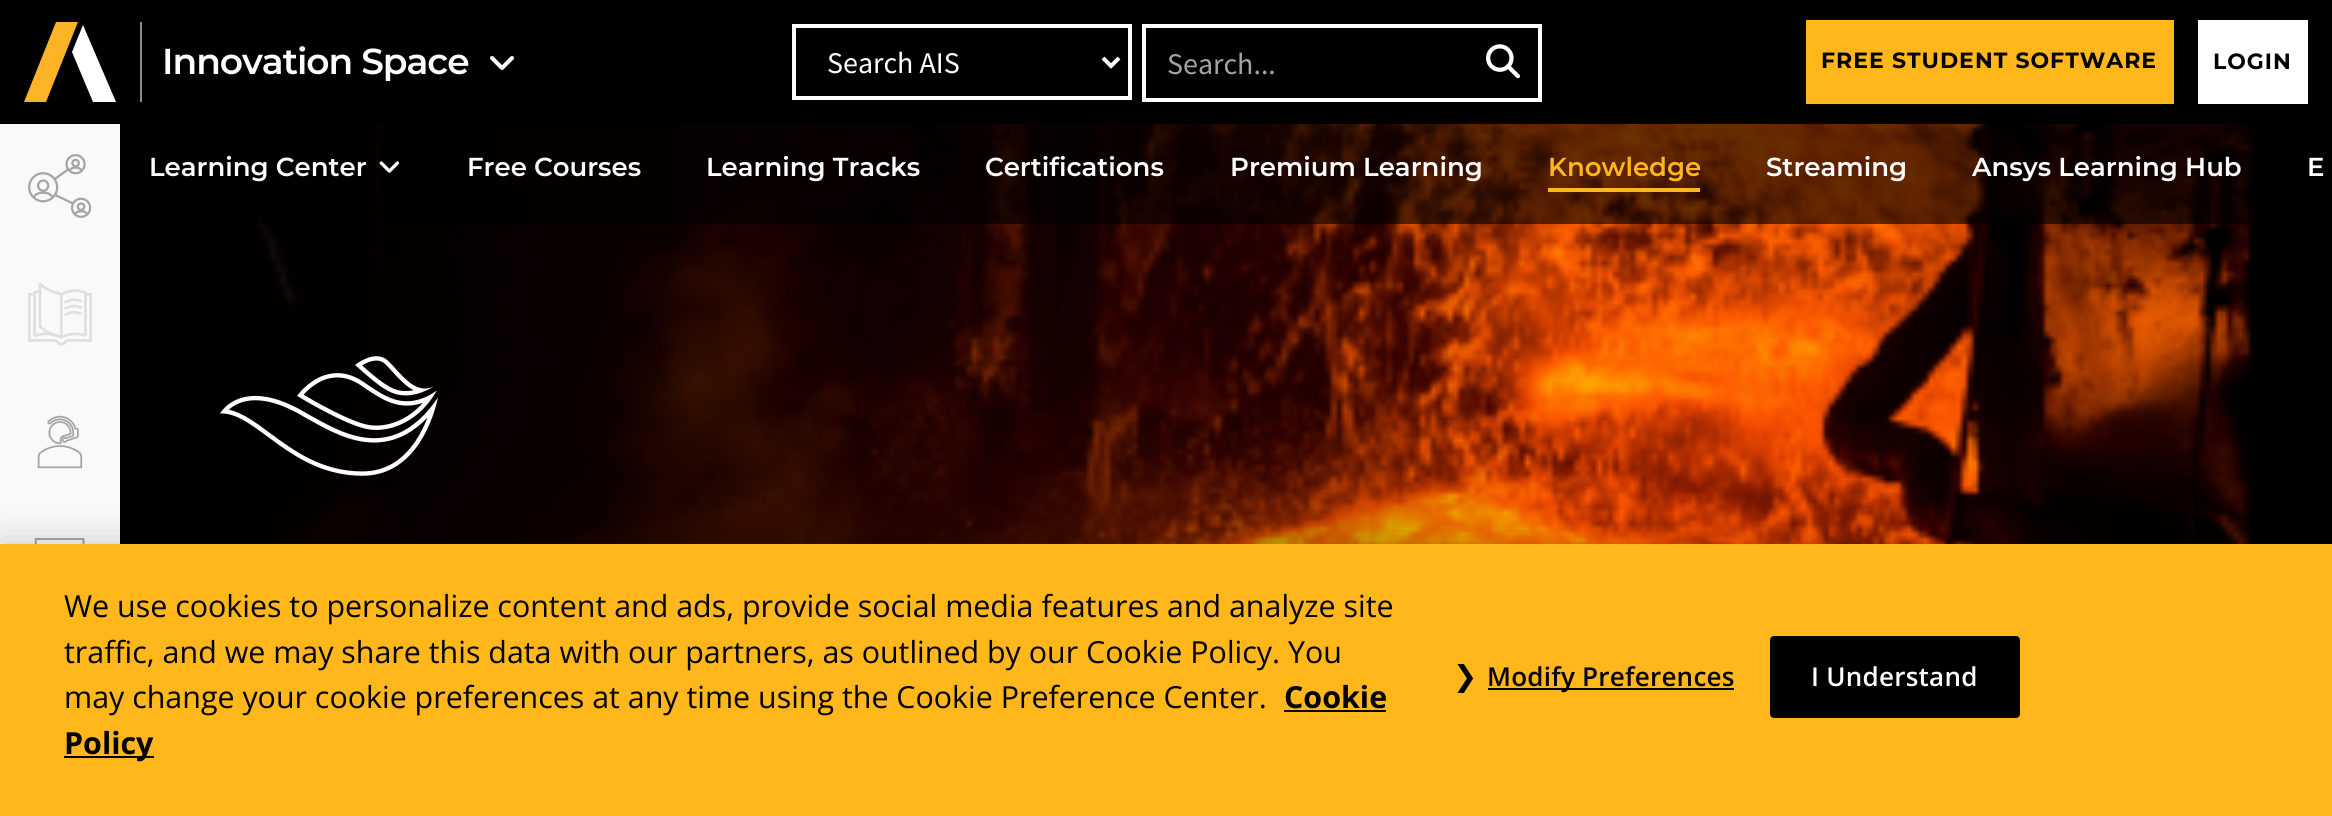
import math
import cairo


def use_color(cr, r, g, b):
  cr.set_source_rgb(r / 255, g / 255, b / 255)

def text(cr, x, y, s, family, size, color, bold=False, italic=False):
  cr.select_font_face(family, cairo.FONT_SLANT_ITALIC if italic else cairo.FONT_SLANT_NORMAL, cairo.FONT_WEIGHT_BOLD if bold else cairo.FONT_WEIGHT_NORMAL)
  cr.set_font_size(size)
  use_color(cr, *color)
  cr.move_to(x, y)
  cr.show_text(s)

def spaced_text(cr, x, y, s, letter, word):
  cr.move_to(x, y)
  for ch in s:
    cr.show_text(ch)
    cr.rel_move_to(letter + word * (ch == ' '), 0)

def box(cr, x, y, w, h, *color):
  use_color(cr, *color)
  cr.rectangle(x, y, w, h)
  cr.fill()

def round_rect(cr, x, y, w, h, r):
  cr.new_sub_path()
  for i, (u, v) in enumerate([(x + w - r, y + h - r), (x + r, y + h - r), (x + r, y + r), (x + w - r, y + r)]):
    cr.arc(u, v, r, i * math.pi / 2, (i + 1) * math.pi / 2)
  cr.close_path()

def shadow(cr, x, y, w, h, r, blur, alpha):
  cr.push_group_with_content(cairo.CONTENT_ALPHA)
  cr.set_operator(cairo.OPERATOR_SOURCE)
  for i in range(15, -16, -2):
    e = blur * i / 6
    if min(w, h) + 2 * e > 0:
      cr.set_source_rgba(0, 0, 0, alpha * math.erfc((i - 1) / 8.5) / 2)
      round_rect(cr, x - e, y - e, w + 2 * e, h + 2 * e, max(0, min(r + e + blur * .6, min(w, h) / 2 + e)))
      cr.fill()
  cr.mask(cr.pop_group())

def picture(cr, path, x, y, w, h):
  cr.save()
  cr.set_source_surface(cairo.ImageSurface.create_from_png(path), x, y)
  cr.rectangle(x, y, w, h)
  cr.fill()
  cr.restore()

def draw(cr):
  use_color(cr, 255, 255, 255)
  cr.paint()
  picture(cr, "img_07.png", 120, 124, 2212, 420)
  use_color(cr, 0, 0, 0)
  shadow(cr, 0, 130, 120, 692, 0, 10, 0.22)
  box(cr, 0, 0, 2332, 124, 0, 0, 0)
  use_color(cr, 252, 179, 38)
  cr.new_path()
  cr.move_to(24, 102)
  cr.line_to(56, 22)
  cr.line_to(78, 22)
  cr.line_to(46, 102)
  cr.close_path()
  cr.fill()
  use_color(cr, 255, 255, 255)
  cr.new_path()
  cr.move_to(116, 102)
  cr.line_to(93, 102)
  cr.line_to(72, 52)
  cr.line_to(83, 25)
  cr.close_path()
  cr.fill()
  box(cr, 140, 22, 2, 80, 137, 138, 141)
  picture(cr, "img_01.png", 490, 56, 24, 14)
  cr.rectangle(794, 26, 336, 72)
  use_color(cr, 255, 255, 255)
  cr.set_line_width(4)
  cr.stroke()
  cr.new_path()
  cr.move_to(1103, 58)
  cr.line_to(1111, 66)
  cr.line_to(1119, 58)
  cr.stroke()
  cr.rectangle(1144, 26, 396, 74)
  cr.stroke()
  picture(cr, "img_02.png", 1486, 44, 34, 35)
  box(cr, 1806, 20, 368, 84, 255, 183, 27)
  box(cr, 2198, 20, 110, 84, 255, 255, 255)
  box(cr, 0, 124, 120, 420, 249, 249, 249)
  picture(cr, "img_03.png", 28, 154, 64, 64)
  picture(cr, "img_04.png", 28, 282, 64, 64)
  picture(cr, "img_05.png", 37, 415, 46, 54)
  picture(cr, "img_06.png", 34, 538, 51, 6)
  picture(cr, "img_08.png", 220, 356, 218, 120)
  cr.set_source_rgba(0, 0, 0, 0.6)
  cr.rectangle(257, 124, 1999, 100)
  cr.fill()
  picture(cr, "img_09.png", 379, 161, 21, 12)
  box(cr, 1548, 188, 152, 4, 255, 183, 27)
  use_color(cr, 0, 0, 0)
  shadow(cr, 0, 544, 2332, 272, 0, 18, 0.2)
  box(cr, 0, 544, 2332, 272, 255, 183, 27)
  box(cr, 1284, 710, 102, 2, 0, 0, 0)
  box(cr, 64, 756, 90, 2, 0, 0, 0)
  box(cr, 1488, 688, 246, 2, 0, 0, 0)
  round_rect(cr, 1771, 637, 248, 80, 3)
  cr.fill_preserve()
  cr.set_line_width(2)
  cr.stroke()
  cr.select_font_face("Montserrat SemiBold")
  cr.set_font_size(36)
  use_color(cr, 255, 255, 255)
  spaced_text(cr, 162, 74, "Innovation Space", -1, 0)
  text(cr, 827, 73, "Search AIS", "Source Sans Pro", 30, (255, 255, 255))
  text(cr, 1167, 74, "Search...", "Source Sans Pro", 30, (164, 164, 164))
  cr.select_font_face("Montserrat", cairo.FONT_SLANT_NORMAL, cairo.FONT_WEIGHT_BOLD)
  cr.set_font_size(22)
  use_color(cr, 0, 0, 0)
  spaced_text(cr, 1821, 68, "FREE STUDENT SOFTWARE", 1, 0)
  spaced_text(cr, 2213, 69, "LOGIN", 1, 0)
  text(cr, 149, 176, "Learning Center", "Montserrat SemiBold", 26, (255, 255, 255))
  text(cr, 467, 176, "Free Courses", "Montserrat SemiBold", 26, (255, 255, 255))
  text(cr, 706, 176, "Learning Tracks", "Montserrat SemiBold", 26, (255, 255, 255))
  text(cr, 985, 176, "Certifications", "Montserrat SemiBold", 26, (255, 255, 255))
  text(cr, 1230, 176, "Premium Learning", "Montserrat SemiBold", 26, (255, 255, 255))
  text(cr, 1548, 176, "Knowledge", "Montserrat SemiBold", 26, (255, 183, 27))
  text(cr, 1766, 176, "Streaming", "Montserrat SemiBold", 26, (255, 255, 255))
  text(cr, 1972, 176, "Ansys Learning Hub", "Montserrat SemiBold", 26, (255, 255, 255))
  text(cr, 2307, 176, "E", "Montserrat SemiBold", 26, (255, 255, 255))
  text(cr, 64, 617, "We use cookies to personalize content and ads, provide social media features and analyze site", "Open Sans", 30.4, (0, 0, 0))
  text(cr, 64, 663, "traffic, and we may share this data with our partners, as outlined by our Cookie Policy. You", "Open Sans", 30.4, (0, 0, 0))
  text(cr, 64, 708, "may change your cookie preferences at any time using the Cookie Preference Center.", "Open Sans", 30.4, (0, 0, 0))
  text(cr, 1284, 708, "Cookie", "Open Sans", 30.4, (0, 0, 0), bold=True)
  text(cr, 64, 754, "Policy", "Open Sans", 30.4, (0, 0, 0), bold=True)
  cr.select_font_face("DejaVu Sans")
  cr.set_font_size(29)
  spaced_text(cr, 1453, 686, "❯", 0.25, 0)
  cr.select_font_face("Open Sans SemiBold")
  cr.set_font_size(26)
  spaced_text(cr, 1487, 686, "Modify Preferences", 0.25, 0)
  use_color(cr, 255, 255, 255)
  spaced_text(cr, 1811, 686, "I Understand", 0.25, 0)


surface = cairo.ImageSurface(cairo.FORMAT_RGB24, 2332, 816)
cr = cairo.Context(surface)
options = cairo.FontOptions()
options.set_hint_metrics(cairo.HINT_METRICS_OFF)
options.set_hint_style(cairo.HINT_STYLE_NONE)
cr.set_font_options(options)
cr.set_miter_limit(4)
draw(cr)
surface.write_to_png("out.png")
